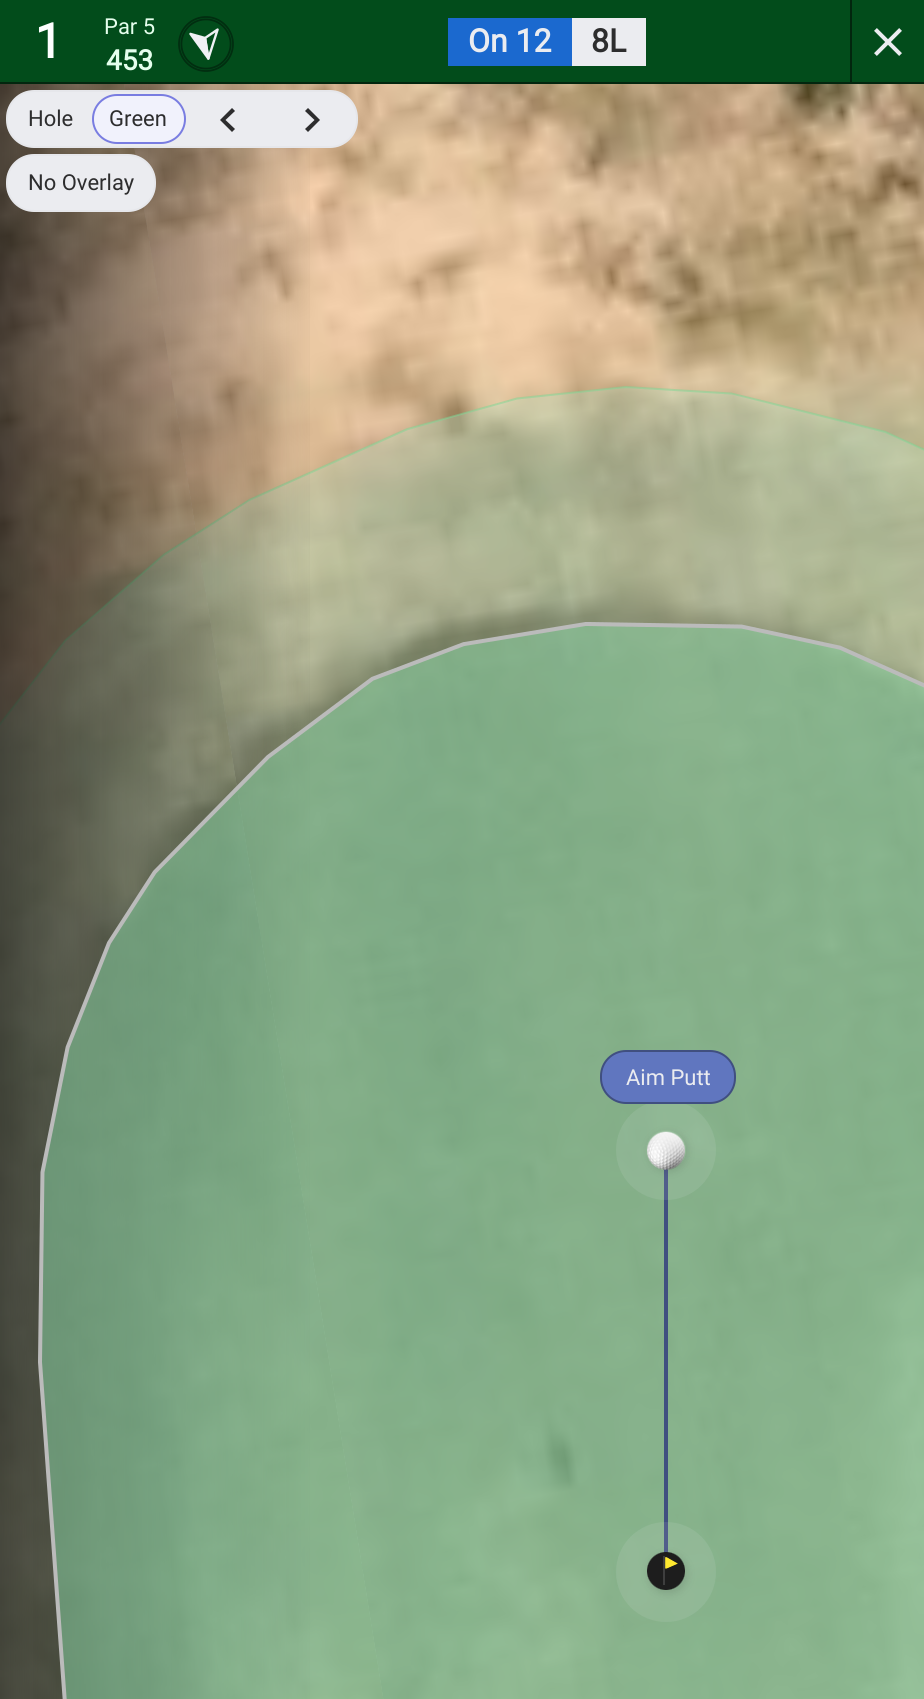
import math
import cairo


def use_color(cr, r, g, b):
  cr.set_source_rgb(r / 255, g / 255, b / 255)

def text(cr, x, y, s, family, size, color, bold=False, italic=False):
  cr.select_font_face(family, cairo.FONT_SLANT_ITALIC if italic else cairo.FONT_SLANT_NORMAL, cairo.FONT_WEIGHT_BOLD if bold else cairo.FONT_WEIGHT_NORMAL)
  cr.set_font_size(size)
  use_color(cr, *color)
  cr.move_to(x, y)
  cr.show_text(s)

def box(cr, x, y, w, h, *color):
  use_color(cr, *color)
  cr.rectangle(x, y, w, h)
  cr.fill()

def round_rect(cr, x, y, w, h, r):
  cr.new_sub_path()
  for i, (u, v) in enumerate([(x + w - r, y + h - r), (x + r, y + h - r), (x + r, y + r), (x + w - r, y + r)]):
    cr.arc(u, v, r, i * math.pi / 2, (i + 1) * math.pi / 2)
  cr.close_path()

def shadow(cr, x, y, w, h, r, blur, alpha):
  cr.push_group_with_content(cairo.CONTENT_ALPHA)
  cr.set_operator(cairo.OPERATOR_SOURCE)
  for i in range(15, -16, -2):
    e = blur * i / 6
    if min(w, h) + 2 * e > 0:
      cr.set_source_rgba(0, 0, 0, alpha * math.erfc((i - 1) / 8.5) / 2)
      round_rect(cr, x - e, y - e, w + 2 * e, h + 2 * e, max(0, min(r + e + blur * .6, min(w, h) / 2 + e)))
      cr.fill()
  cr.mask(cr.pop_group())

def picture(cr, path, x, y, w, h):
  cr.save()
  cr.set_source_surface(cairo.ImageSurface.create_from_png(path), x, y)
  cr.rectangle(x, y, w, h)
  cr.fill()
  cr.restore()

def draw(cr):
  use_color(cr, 255, 255, 255)
  cr.paint()
  box(cr, 0, 0, 924, 82, 2, 76, 27)
  box(cr, 0, 82, 924, 2, 2, 38, 14)
  picture(cr, "img_01.png", 178, 16, 56, 56)
  box(cr, 448, 18, 124, 48, 27, 105, 207)
  box(cr, 572, 18, 74, 48, 235, 236, 240)
  box(cr, 850, 0, 2, 82, 2, 38, 14)
  picture(cr, "img_02.png", 874, 28, 28, 28)
  use_color(cr, 0, 0, 0)
  shadow(cr, 10, 230, 904, 604, 10, 6, 0.1)
  cr.rectangle(51, 737, 410, 54)
  use_color(cr, 152, 152, 152)
  cr.stroke()
  use_color(cr, 0, 0, 0)
  shadow(cr, 10, 842, 904, 604, 10, 6, 0.1)
  cr.rectangle(261, 905, 402, 402)
  use_color(cr, 160, 160, 163)
  cr.stroke()
  cr.rectangle(51, 1349, 410, 54)
  use_color(cr, 152, 152, 152)
  cr.stroke()
  use_color(cr, 0, 0, 0)
  shadow(cr, 10, 1454, 904, 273, 10, 6, 0.1)
  cr.rectangle(261, 1517, 402, 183)
  use_color(cr, 160, 160, 163)
  cr.stroke()
  picture(cr, "img_07.png", 361, 1563, 2, 8)
  picture(cr, "img_03.png", 0, 84, 924, 1615)
  gradient = cairo.LinearGradient(0, 1571, 400, 1571)
  gradient.add_color_stop_rgba(0, 0.078, 0.078, 0.078, 0.7)
  gradient.add_color_stop_rgba(0.8, 0.078, 0.078, 0.078, 0)
  cr.set_source(gradient)
  cr.rectangle(0, 84, 310, 1615)
  cr.fill()
  use_color(cr, 235, 236, 240)
  round_rect(cr, 7, 91, 350, 56, 27)
  cr.fill_preserve()
  use_color(cr, 230, 231, 235)
  cr.stroke()
  use_color(cr, 241, 242, 252)
  round_rect(cr, 93, 95, 92, 48, 24)
  cr.fill_preserve()
  use_color(cr, 121, 125, 225)
  cr.stroke()
  use_color(cr, 45, 45, 46)
  cr.new_path()
  cr.move_to(235, 111)
  cr.line_to(225.5, 120)
  cr.line_to(235, 129)
  cr.line_to(232, 132)
  cr.line_to(220, 120)
  cr.line_to(232, 108)
  cr.close_path()
  cr.fill()
  cr.new_path()
  cr.move_to(308, 108)
  cr.line_to(320, 120)
  cr.line_to(308, 132)
  cr.line_to(305, 129)
  cr.line_to(314.5, 120)
  cr.line_to(305, 111)
  cr.close_path()
  cr.fill()
  use_color(cr, 235, 236, 240)
  round_rect(cr, 7, 155, 148, 56, 27)
  cr.fill_preserve()
  use_color(cr, 230, 231, 235)
  cr.stroke()
  picture(cr, "img_04.png", 38, 622, 886, 1077)
  box(cr, 664, 1168, 4, 385, 64, 79, 128)
  cr.set_source_rgba(0.922, 0.925, 0.941, 0.1)
  cr.arc(666, 1150, 50, 0, 2 * math.pi)
  cr.fill()
  use_color(cr, 96, 118, 191)
  round_rect(cr, 601, 1051, 134, 52, 25)
  cr.fill_preserve()
  use_color(cr, 64, 79, 128)
  cr.stroke()
  cr.save()
  cr.set_fill_rule(cairo.FILL_RULE_EVEN_ODD)
  cr.new_path()
  cr.move_to(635, 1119)
  cr.line_to(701, 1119)
  cr.line_to(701, 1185)
  cr.line_to(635, 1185)
  cr.close_path()
  cr.move_to(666, 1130)
  cr.curve_to(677, 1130, 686, 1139, 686, 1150)
  cr.curve_to(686, 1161, 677, 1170, 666, 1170)
  cr.curve_to(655, 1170, 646, 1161, 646, 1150)
  cr.curve_to(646, 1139, 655, 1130, 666, 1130)
  cr.close_path()
  cr.clip()
  use_color(cr, 0, 0, 0)
  shadow(cr, 648, 1132, 40, 40, 20, 4, 0.1)
  cr.restore()
  picture(cr, "img_05.png", 647, 1131, 38, 39)
  cr.set_source_rgba(0.922, 0.925, 0.941, 0.1)
  cr.arc(666, 1572, 50, 0, 2 * math.pi)
  cr.fill()
  use_color(cr, 0, 0, 0)
  shadow(cr, 648, 1554, 40, 40, 20, 4, 0.1)
  picture(cr, "img_06.png", 647, 1552, 38, 38)
  text(cr, 35, 58, "1", "Roboto", 48, (253, 255, 255), bold=True)
  text(cr, 104, 34, "Par 5", "Roboto", 22, (229, 255, 237))
  text(cr, 106, 70, "453", "Roboto", 28, (229, 255, 237), bold=True)
  text(cr, 468, 52, "On 12", "Roboto", 32, (235, 236, 240), bold=True)
  text(cr, 591, 52, "8L", "Roboto", 32, (45, 45, 46), bold=True)
  text(cr, 28, 126, "Hole", "Roboto", 22, (45, 45, 46))
  text(cr, 109, 126, "Green", "Roboto", 22, (45, 45, 46))
  text(cr, 28, 190, "No Overlay", "Roboto", 22, (45, 45, 46))
  text(cr, 626, 1085, "Aim Putt", "Roboto", 22, (235, 236, 240))


surface = cairo.ImageSurface(cairo.FORMAT_RGB24, 924, 1699)
cr = cairo.Context(surface)
options = cairo.FontOptions()
options.set_hint_metrics(cairo.HINT_METRICS_OFF)
options.set_hint_style(cairo.HINT_STYLE_NONE)
cr.set_font_options(options)
cr.set_miter_limit(4)
draw(cr)
surface.write_to_png("out.png")
